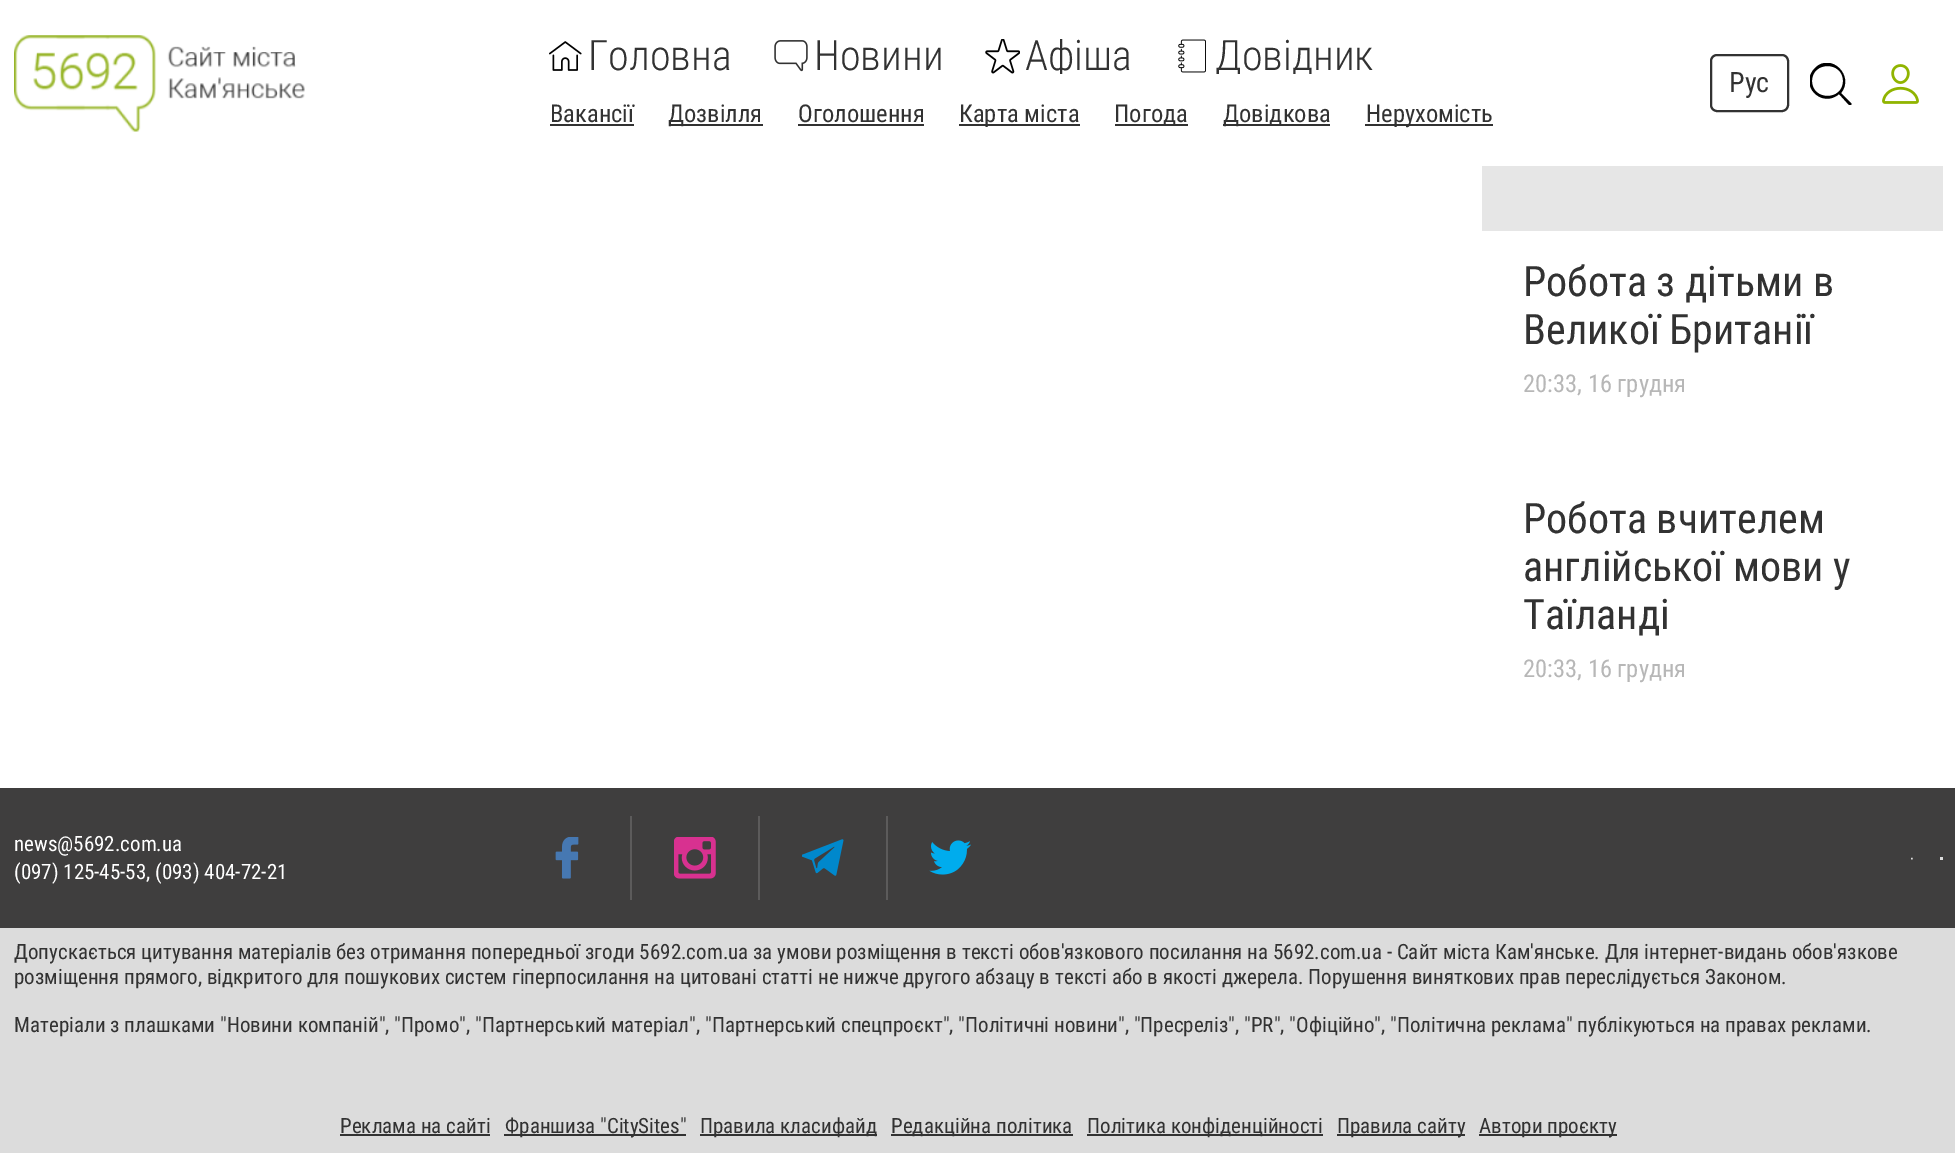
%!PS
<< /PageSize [1955 1153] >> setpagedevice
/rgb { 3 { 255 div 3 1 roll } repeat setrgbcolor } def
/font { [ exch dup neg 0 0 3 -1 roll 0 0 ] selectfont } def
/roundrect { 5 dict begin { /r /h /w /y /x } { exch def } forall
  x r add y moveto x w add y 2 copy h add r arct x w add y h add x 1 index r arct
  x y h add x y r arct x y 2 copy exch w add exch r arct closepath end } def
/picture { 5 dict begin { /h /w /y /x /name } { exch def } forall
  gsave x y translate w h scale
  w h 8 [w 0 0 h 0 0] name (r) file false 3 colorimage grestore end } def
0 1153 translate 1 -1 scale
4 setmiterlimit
255 255 255 rgb
0 0 1955 1153 rectfill
(img/1.rgb) 14 35 291 97 picture
(img/2.rgb) 549 41 33 30 picture
(img/3.rgb) 774 40 34 32 picture
(img/4.rgb) 985 39 35 35 picture
(img/5.rgb) 1178 39 28 34 picture
[
  [550 124 84 2 50 50 50]
  [669 124 94 2 50 50 50]
  [798 124 126 2 50 50 50]
  [959 124 121 2 50 50 50]
  [1115 124 73 2 50 50 50]
  [1223 124 107 2 50 50 50]
  [1365 124 128 2 50 50 50]
] { aload pop rgb rectfill } forall
2 setlinewidth
1711 55 77 56 6 roundrect stroke
gsave
1810 63 42 42 rectclip
0 0 0 rgb
1851 103 moveto 1841 93 lineto 1855 76 1831 52 1815 68 curveto 1798 85 1822 109 1839 94 curveto 1849 105 lineto 1851 106 1852 104 1851 103 curveto closepath 1812 81 moveto 1812 61 1843 61 1843 81 curveto 1843 101 1812 101 1812 81 curveto closepath fill
grestore
(img/6.rgb) 1882 64 37 40 picture
[
  [1482 166 461 65 230 230 230]
  [0 788 1955 140 63 62 62]
  [630 816 2 84 92 91 91]
] { aload pop rgb rectfill } forall
(img/7.rgb) 555 837 24 42 picture
758 816 2 84 rectfill
(img/8.rgb) 674 837 42 42 picture
886 816 2 84 rectfill
(img/9.rgb) 802 839 42 37 picture
(img/10.rgb) 929 840 42 35 picture
(img/11.rgb) 1911 857 2 3 picture
[
  [1940 857 3 3 220 220 220]
  [0 928 1955 225 220 220 220]
  [340 1134 150 2 50 50 50]
  [504 1134 182 2 50 50 50]
  [700 1134 177 2 50 50 50]
  [891 1134 182 2 50 50 50]
  [1087 1134 236 2 50 50 50]
  [1337 1134 128 2 50 50 50]
  [1479 1134 138 2 50 50 50]
] { aload pop rgb rectfill } forall
/RobotoCondensed-Light 42 font
588 70 moveto (Головна) show
814 70 moveto (Новини) show
gsave
985 39 147 35 rectclip
1025 70 moveto (Афіша) show
grestore
gsave
1174 39 200 35 rectclip
1215 70 moveto (Довідник) show
grestore
/RobotoCondensed-Regular 24.5 font
[
  [(Вакансії) 550 122]
  [(Дозвілля) 668 122]
  [(Оголошення) 798 122]
  [(Карта міста) 959 122]
  [(Погода) 1114 122]
  [(Довідкова) 1223 122]
  [(Нерухомість) 1366 122]
] { aload pop moveto show } forall
/RobotoCondensed-Regular 28 font
1729 92 moveto (Рус) show
/RobotoCondensed-Regular 42 font
1523 296 moveto (Робота з дітьми в) show
1523 344 moveto (Великої Британії) show
/RobotoCondensed-Regular 24.5 font
183 183 183 rgb
1523 392 moveto (20:33, 16 грудня) show
/RobotoCondensed-Regular 42 font
50 50 50 rgb
[
  [(Робота вчителем) 1523 533]
  [(англійської мови у) 1523 581]
  [(Таїланді) 1523 629]
] { aload pop moveto show } forall
/RobotoCondensed-Regular 24.5 font
183 183 183 rgb
1523 677 moveto (20:33, 16 грудня) show
/RobotoCondensed-Regular 21 font
255 255 255 rgb
14 851 moveto (news@5692.com.ua) show
14 879 moveto (\(097\) 125-45-53, \(093\) 404-72-21) show
50 50 50 rgb
[
  [(Допускається цитування матеріалів без отримання попередньої згоди 5692.com.ua за умови розміщення в тексті обов'язкового посилання на 5692.com.ua - Сайт міста Кам'янське. Для інтернет-видань обов'язкове) 14 959]
  [(розміщення прямого, відкритого для пошукових систем гіперпосилання на цитовані статті не нижче другого абзацу в тексті або в якості джерела. Порушення виняткових прав переслідується Законом.) 14 984]
  [(Матеріали з плашками "Новини компаній", "Промо", "Партнерський матеріал", "Партнерський спецпроєкт", "Політичні новини", "Пресреліз", "PR", "Офіційно", "Політична реклама" публікуються на правах реклами.) 14 1032]
  [(Реклама на сайті) 340 1133]
  [(Франшиза "CitySites") 505 1133]
  [(Правила класифайд) 700 1133]
  [(Редакційна політика) 891 1133]
  [(Політика конфіденційності) 1087 1133]
  [(Правила сайту) 1337 1133]
  [(Автори проєкту) 1479 1133]
] { aload pop moveto show } forall
showpage
